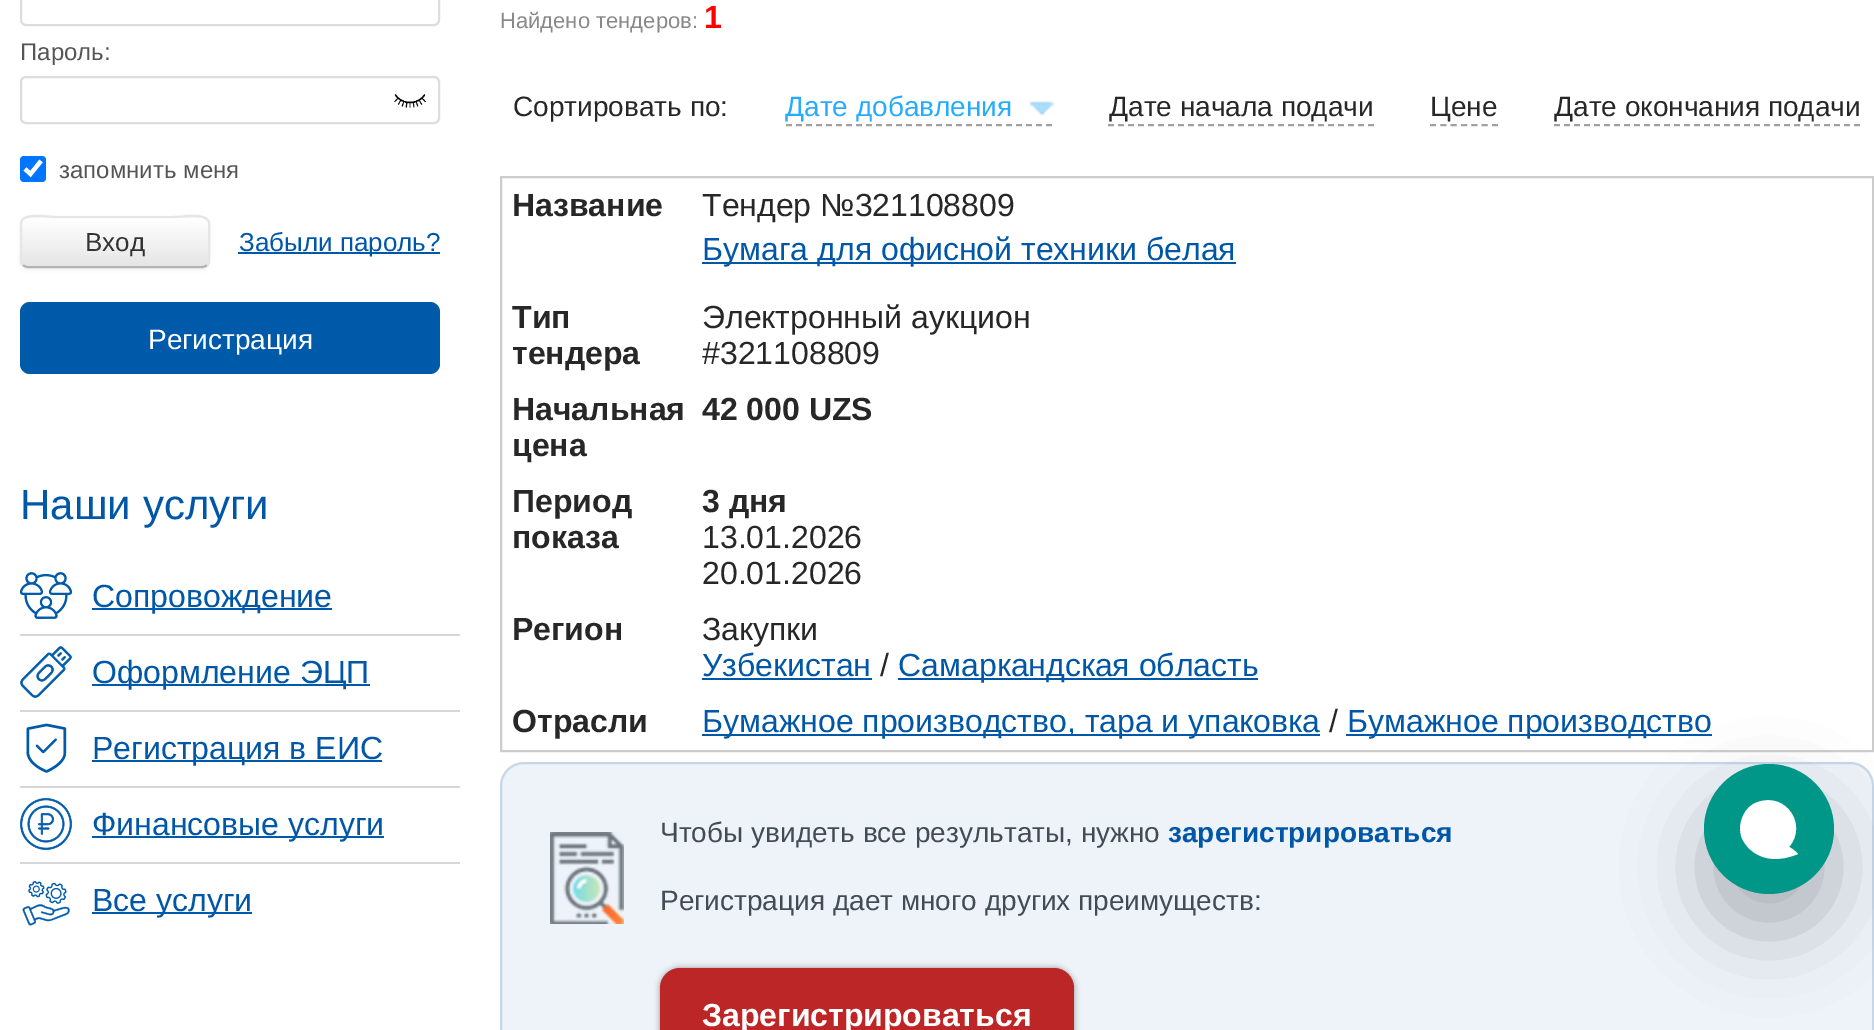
%!PS
<< /PageSize [1874 1030] /PageUsesTransparency true >> setpagedevice
/rgb { 3 { 255 div 3 1 roll } repeat setrgbcolor } def
/font { [ exch dup neg 0 0 3 -1 roll 0 0 ] selectfont } def
/alpha { dup .setfillconstantalpha .setstrokeconstantalpha } def
/circle { newpath 0 360 arc closepath } def
/roundrect { 5 dict begin { /r /h /w /y /x } { exch def } forall
  x r add y moveto x w add y 2 copy h add r arct x w add y h add x 1 index r arct
  x y h add x y r arct x y 2 copy exch w add exch r arct closepath end } def
/shadow { 12 dict begin { /a /b /q /h /w /y /x } { exch def } forall gsave /was 0 def
  9 -2 -9 { dup b mul 4 div /e exch def 1 sub .425 mul 2.718 exch exp 1 add a .99 .min exch div /now exch def
    1 1 now sub 1 was sub div sub alpha /was now def
    w h .min e 2 mul add 0 gt { x e sub y e sub w e 2 mul add h e 2 mul add
      q e add b .6 mul add w h .min 2 div e add .min 0 .max roundrect fill } if } for grestore end } def
/picture { 5 dict begin { /h /w /y /x /name } { exch def } forall
  gsave x y translate w h scale
  w h 8 [w 0 0 h 0 0] name (r) file false 3 colorimage grestore end } def
0 .pushpdf14devicefilter
0 1030 translate 1 -1 scale
4 setmiterlimit
255 255 255 rgb
0 0 1874 1030 rectfill
221 221 221 rgb
2 setlinewidth
21 -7 418 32 5 roundrect stroke
21 77 418 46 5 roundrect stroke
(img/1.rgb) 394 94 32 14 picture
0 117 255 rgb
20 156 26 26 4 roundrect fill
255 255 255 rgb
4.2 setlinewidth
25 169 moveto 30.5 174 lineto 41 161 lineto stroke
0 0 0 rgb
20 218 190 52 8 2 0.05 shadow
245 245 245 rgb
20 216 190 52 8 roundrect fill
gsave
20 216 190 52 8 roundrect clip newpath
gsave 20 218 moveto 210 218 lineto 210 266 lineto 20 266 lineto closepath clip newpath
<< /ShadingType 2 /ColorSpace /DeviceRGB /Coords [115 218 115 266] /Extend [true true] /Function << /FunctionType 2 /Domain [0 1] /C0 [1 1 1] /C1 [0.902 0.902 0.902] /N 1 >> >> shfill grestore
grestore
179 179 179 rgb
2 setlinewidth
207 265 moveto 205.5 266.5 204 267 202 267 curveto 28 267 lineto 26 267 24.5 266.5 23 265 curveto stroke
230 230 230 rgb
23 265 moveto 20 262 21 257.5 21 254 curveto 21 222.5 lineto 23.5 212 47.5 217 57 217 curveto 173 217 lineto 182.5 217 206.5 212 209 222.5 curveto 209 254 lineto 209 257.5 210 262 207 265 curveto stroke
0 87 168 rgb
238 252 202 2 rectfill
0 90 170 rgb
20 302 420 72 10 roundrect fill
(img/2.rgb) 20 572 52 47 picture
92 608 240 2 rectfill
214 214 214 rgb
20 634 440 2 rectfill
(img/3.rgb) 20 646 52 52 picture
0 90 170 rgb
92 684 278 2 rectfill
214 214 214 rgb
20 710 440 2 rectfill
(img/4.rgb) 26 723 41 50 picture
0 90 170 rgb
92 760 290 2 rectfill
214 214 214 rgb
20 786 440 2 rectfill
(img/5.rgb) 20 798 52 52 picture
0 90 170 rgb
92 836 292 2 rectfill
214 214 214 rgb
20 862 440 2 rectfill
(img/6.rgb) 22 881 48 45 picture
0 90 170 rgb
92 912 160 2 rectfill
161 161 161 rgb
[6 4] 0 setdash
786 125 moveto 1052 125 lineto stroke
(img/7.rgb) 1029 101 26 15 picture
1108 125 moveto 1374 125 lineto stroke
[6 4.34] 0 setdash
1430 125 moveto 1498 125 lineto stroke
[6 4] 0 setdash
1554 125 moveto 1860 125 lineto stroke
204 204 204 rgb
[] 0 setdash
501 177 1372 574 rectstroke
[
  [702 262 534 2 0 87 168]
  [702 678 170 2 0 87 168]
  [898 678 360 2 0 87 168]
  [702 734 618 2 0 87 168]
  [1346 734 366 2 0 87 168]
] { aload pop rgb rectfill } forall
237 243 249 rgb
501 763 1372 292 23 roundrect gsave fill grestore
199 215 231 rgb
stroke
(img/8.rgb) 550 832 74 92 picture
0 0 0 rgb
660 968 414 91 20 3 0.4 shadow
189 38 38 rgb
660 968 414 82 20 roundrect fill
34 36 43 rgb
1704 802 130 130 65 38 0.3 shadow
0 150 136 rgb
1769 829 65 circle fill
255 255 255 rgb
1744 842 moveto 1744 842 1759 870 1798 854 curveto 1798 854 1795 850 1789 847 curveto 1808 825 1786 792 1758 802 curveto 1751 804 1746 809 1743 816 curveto 1739 824 1739 835 1744 842 curveto closepath eofill
/LiberationSans-Regular 24 font
85 85 85 rgb
20 60 moveto (Пароль:) show
59 178 moveto (запомнить меня) show
/LiberationSans-Regular 26 font
51 51 51 rgb
85 251 moveto (Вход) show
0 87 168 rgb
239 251 moveto (Забыли пароль?) show
/LiberationSans-Regular 28 font
255 255 255 rgb
148 349 moveto (Регистрация) show
/LiberationSans-Regular 42 font
0 87 168 rgb
20 519 moveto (Наши услуги) show
/LiberationSans-Regular 32 font
[
  [(Сопровождение) 92 607]
  [(Оформление ЭЦП) 92 683]
  [(Регистрация в ЕИС) 92 759]
  [(Финансовые услуги) 92 835]
  [(Все услуги) 92 911]
] { aload pop moveto show } forall
/LiberationSans-Regular 22 font
137 137 137 rgb
500 28 moveto (Найдено тендеров:) show
/LiberationSans-Bold 32 font
255 0 0 rgb
704 28 moveto (1) show
/LiberationSans-Regular 28 font
39 39 39 rgb
513 116 moveto (Сортировать по:) show
37 172 254 rgb
785 116 moveto (Дате добавления) show
39 39 39 rgb
[
  [(Дате начала подачи) 1109 116]
  [(Цене) 1430 116]
  [(Дате окончания подачи) 1554 116]
] { aload pop moveto show } forall
/LiberationSans-Bold 32 font
512 216 moveto (Название) show
/LiberationSans-Regular 32 font
702 216 moveto (Тендер №321108809) show
0 87 168 rgb
702 260 moveto (Бумага для офисной техники белая) show
/LiberationSans-Bold 32 font
39 39 39 rgb
512 328 moveto (Тип) show
512 364 moveto (тендера) show
/LiberationSans-Regular 32 font
702 328 moveto (Электронный аукцион) show
702 364 moveto (#321108809) show
/LiberationSans-Bold 32 font
[
  [(Начальная) 512 420]
  [(цена) 512 456]
  [(42 000 UZS) 702 420]
  [(Период) 512 512]
  [(показа) 512 548]
  [(3 дня) 702 512]
] { aload pop moveto show } forall
/LiberationSans-Regular 32 font
702 548 moveto (13.01.2026) show
702 584 moveto (20.01.2026) show
/LiberationSans-Bold 32 font
512 640 moveto (Регион) show
/LiberationSans-Regular 32 font
702 640 moveto (Закупки) show
0 87 168 rgb
702 676 moveto (Узбекистан) show
39 39 39 rgb
880 676 moveto (/) show
0 87 168 rgb
898 676 moveto (Самаркандская область) show
/LiberationSans-Bold 32 font
39 39 39 rgb
512 732 moveto (Отрасли) show
/LiberationSans-Regular 32 font
0 87 168 rgb
702 732 moveto (Бумажное производство, тара и упаковка) show
39 39 39 rgb
1329 732 moveto (/) show
0 87 168 rgb
1347 732 moveto (Бумажное производство) show
/LiberationSans-Regular 28 font
68 76 83 rgb
660 842 moveto (Чтобы увидеть все результаты, нужно) show
/LiberationSans-Bold 28 font
0 87 168 rgb
1168 842 moveto (зарегистрироваться) show
/LiberationSans-Regular 28 font
68 76 83 rgb
660 910 moveto (Регистрация дает много других преимуществ:) show
/LiberationSans-Bold 32 font
255 255 255 rgb
702 1026 moveto (Зарегистрироваться) show
.poppdf14devicefilter showpage
